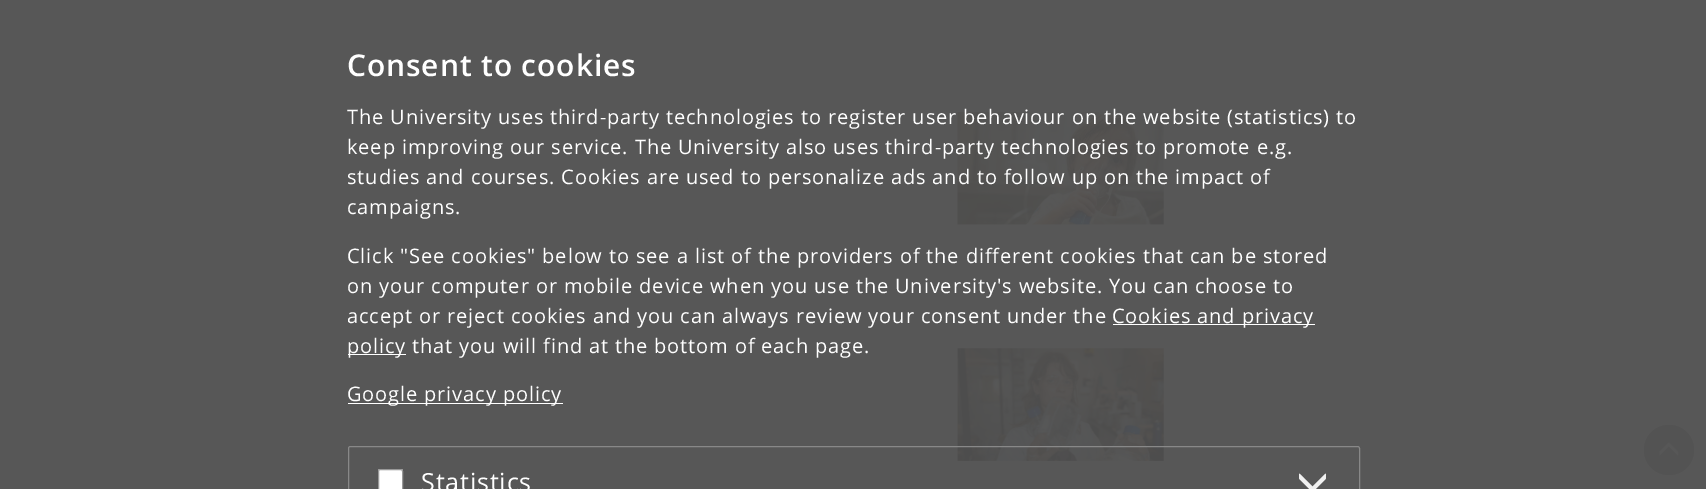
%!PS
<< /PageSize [1706 489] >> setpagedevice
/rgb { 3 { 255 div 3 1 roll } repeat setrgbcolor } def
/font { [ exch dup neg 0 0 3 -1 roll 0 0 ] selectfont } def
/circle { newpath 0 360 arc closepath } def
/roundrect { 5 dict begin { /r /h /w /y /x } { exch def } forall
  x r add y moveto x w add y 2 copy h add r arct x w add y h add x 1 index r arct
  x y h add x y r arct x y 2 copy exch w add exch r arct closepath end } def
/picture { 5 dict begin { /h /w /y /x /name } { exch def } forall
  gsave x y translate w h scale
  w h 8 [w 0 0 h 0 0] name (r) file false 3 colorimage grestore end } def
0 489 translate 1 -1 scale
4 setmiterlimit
87 87 87 rgb
0 0 1706 489 rectfill
[
  [1113 324 202 1 255 255 255]
  [348 354 58 1 255 255 255]
  [348 403 215 1 255 255 255]
] { aload pop rgb rectfill } forall
(img/3.rgb) 957 348 207 113 picture
136 136 136 rgb
348.5 446.5 1011 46 2 roundrect stroke
255 255 255 rgb
380.5 469 moveto 400.5 469 lineto 402 469 403 470 403 471.5 curveto 403 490 lineto 378 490 lineto 378 471.5 lineto 378 470 379 469 380.5 469 curveto closepath fill
153 153 153 rgb
378.5 469.5 24 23 2 roundrect stroke
(img/1.rgb) 1299 473 27 16 picture
(img/2.rgb) 957 112 207 113 picture
83 83 83 rgb
1669 450 25 circle fill
(img/4.rgb) 1659 442 20 14 picture
/OpenSans-SemiBold 30 font
255 255 255 rgb
347 76 moveto 0.88 0 (Consent to cookies) ashow
/OpenSans-Regular 20 font
347 124 moveto 0.88 0 (The University uses third-party technologies to register user behaviour on the website \(statistics\) to) ashow
347 154 moveto 0.88 0 (keep improving our service. The University also uses third-party technologies to promote e.g.) ashow
347 184 moveto 0.88 0 (studies and courses. Cookies are used to personalize ads and to follow up on the impact of) ashow
347 214 moveto 0.88 0 (campaigns.) ashow
347 263 moveto 0.88 0 (Click "See cookies" below to see a list of the providers of the different cookies that can be stored) ashow
347 293 moveto 0.88 0 (on your computer or mobile device when you use the University's website. You can choose to) ashow
347 323 moveto 0.88 0 (accept or reject cookies and you can always review your consent under the) ashow
1112 323 moveto 0.88 0 (Cookies and privacy) ashow
347 353 moveto 0.88 0 (policy that you will find at the bottom of each page.) ashow
347 401 moveto 0.88 0 (Google privacy policy) ashow
/OpenSans-Regular 25 font
421 491 moveto 0.88 0 (Statistics) ashow
showpage
